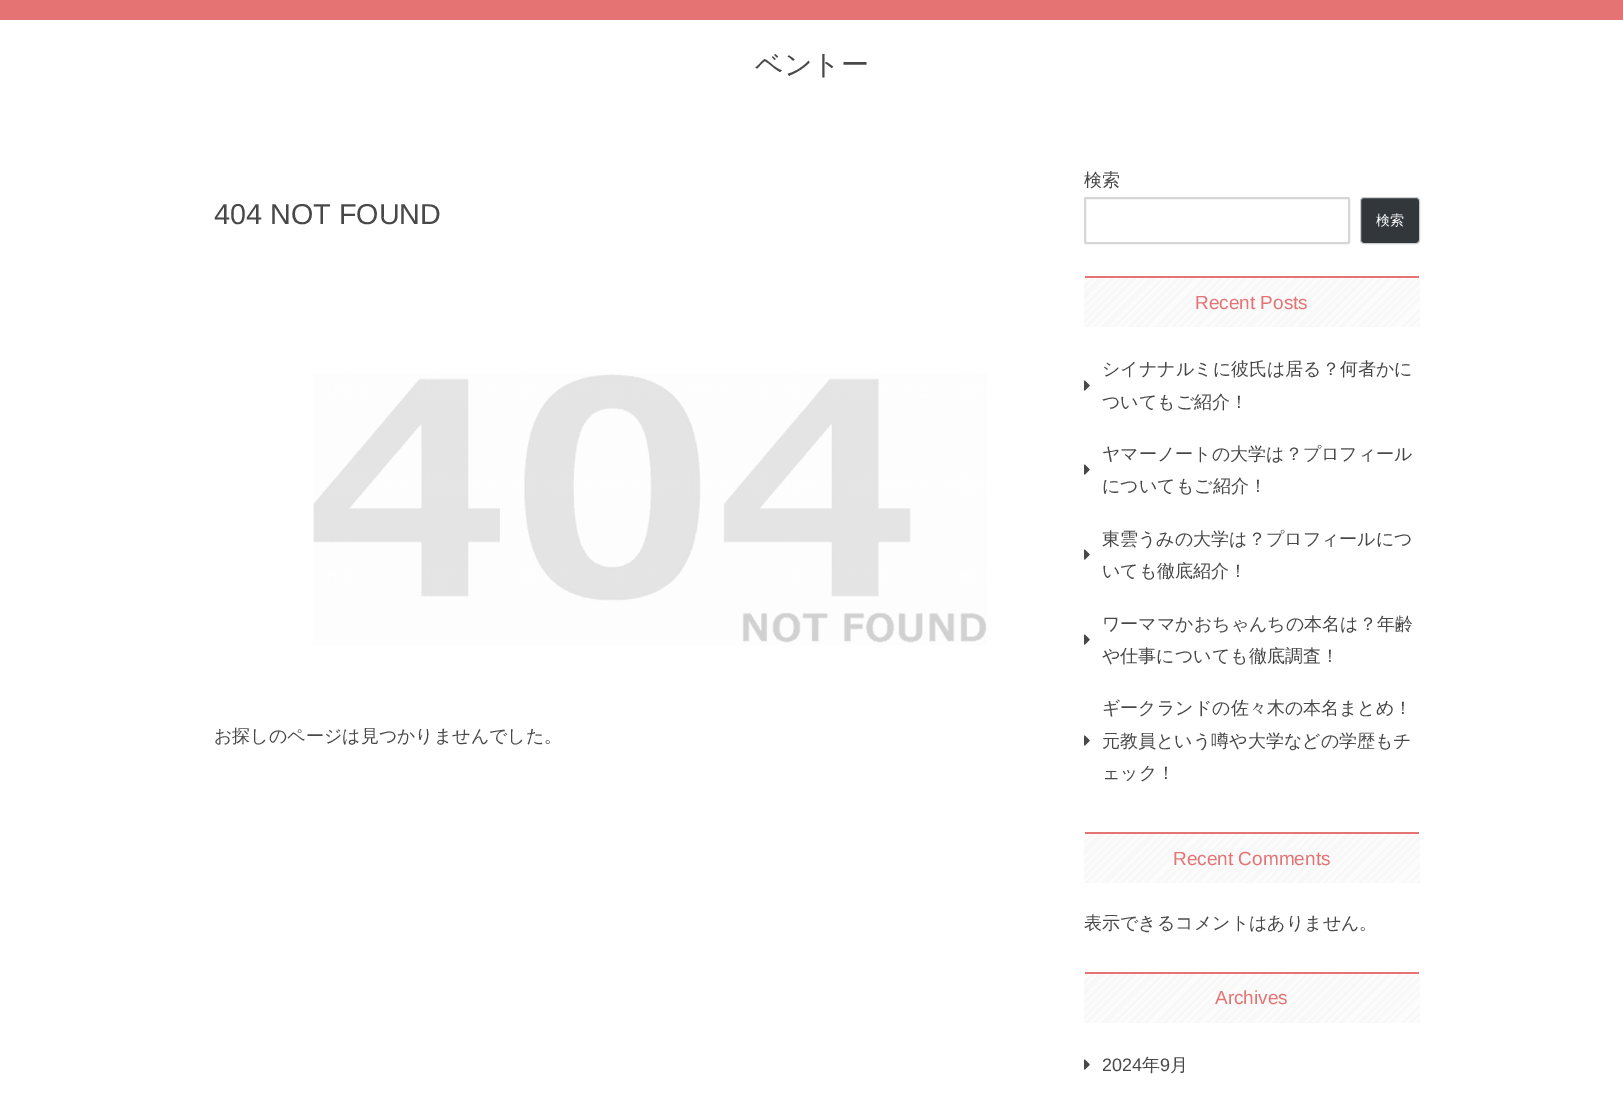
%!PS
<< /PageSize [1623 1105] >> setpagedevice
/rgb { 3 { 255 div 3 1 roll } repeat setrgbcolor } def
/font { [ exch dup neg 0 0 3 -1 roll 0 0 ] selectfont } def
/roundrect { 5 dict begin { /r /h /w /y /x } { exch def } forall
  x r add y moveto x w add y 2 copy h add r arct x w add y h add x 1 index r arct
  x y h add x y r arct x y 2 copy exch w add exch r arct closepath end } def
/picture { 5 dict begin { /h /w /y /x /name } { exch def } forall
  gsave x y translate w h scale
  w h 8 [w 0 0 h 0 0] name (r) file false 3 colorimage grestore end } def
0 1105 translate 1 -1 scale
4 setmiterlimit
255 255 255 rgb
0 0 1623 1105 rectfill
229 115 115 rgb
0 0 1623 20 rectfill
(img/1.rgb) 313 373 674 272 picture
214 214 214 rgb
2 setlinewidth
1085 198 264 45 1 roundrect stroke
50 55 60 rgb
1360.5 197.5 59 46 3.5 roundrect gsave fill grestore
204 204 204 rgb
1 setlinewidth
stroke
gsave 1086 278 moveto 1420 278 lineto 1420 325 lineto 1420 326 1419 327 1418 327 curveto 1086 327 lineto 1085 327 1084 326 1084 325 curveto 1084 278 lineto closepath clip newpath
<< /ShadingType 2 /ColorSpace /DeviceRGB /Coords [1348 399 1153 204] /Extend [true true] /Function << /FunctionType 3 /Domain [0 1] /Functions [<< /FunctionType 2 /Domain [0 1] /C0 [0.973 0.973 0.973] /C1 [0.973 0.973 0.973] /N 1 >> << /FunctionType 2 /Domain [0 1] /C0 [0.988 0.988 0.988] /C1 [0.988 0.988 0.988] /N 1 >> << /FunctionType 2 /Domain [0 1] /C0 [0.973 0.973 0.973] /C1 [0.973 0.973 0.973] /N 1 >> << /FunctionType 2 /Domain [0 1] /C0 [0.988 0.988 0.988] /C1 [0.988 0.988 0.988] /N 1 >> << /FunctionType 2 /Domain [0 1] /C0 [0.973 0.973 0.973] /C1 [0.973 0.973 0.973] /N 1 >> << /FunctionType 2 /Domain [0 1] /C0 [0.988 0.988 0.988] /C1 [0.988 0.988 0.988] /N 1 >> << /FunctionType 2 /Domain [0 1] /C0 [0.973 0.973 0.973] /C1 [0.973 0.973 0.973] /N 1 >> << /FunctionType 2 /Domain [0 1] /C0 [0.988 0.988 0.988] /C1 [0.988 0.988 0.988] /N 1 >> << /FunctionType 2 /Domain [0 1] /C0 [0.973 0.973 0.973] /C1 [0.973 0.973 0.973] /N 1 >> << /FunctionType 2 /Domain [0 1] /C0 [0.988 0.988 0.988] /C1 [0.988 0.988 0.988] /N 1 >> << /FunctionType 2 /Domain [0 1] /C0 [0.973 0.973 0.973] /C1 [0.973 0.973 0.973] /N 1 >> << /FunctionType 2 /Domain [0 1] /C0 [0.988 0.988 0.988] /C1 [0.988 0.988 0.988] /N 1 >> << /FunctionType 2 /Domain [0 1] /C0 [0.973 0.973 0.973] /C1 [0.973 0.973 0.973] /N 1 >> << /FunctionType 2 /Domain [0 1] /C0 [0.988 0.988 0.988] /C1 [0.988 0.988 0.988] /N 1 >> << /FunctionType 2 /Domain [0 1] /C0 [0.973 0.973 0.973] /C1 [0.973 0.973 0.973] /N 1 >> << /FunctionType 2 /Domain [0 1] /C0 [0.988 0.988 0.988] /C1 [0.988 0.988 0.988] /N 1 >> << /FunctionType 2 /Domain [0 1] /C0 [0.973 0.973 0.973] /C1 [0.973 0.973 0.973] /N 1 >> << /FunctionType 2 /Domain [0 1] /C0 [0.988 0.988 0.988] /C1 [0.988 0.988 0.988] /N 1 >> << /FunctionType 2 /Domain [0 1] /C0 [0.973 0.973 0.973] /C1 [0.973 0.973 0.973] /N 1 >> << /FunctionType 2 /Domain [0 1] /C0 [0.988 0.988 0.988] /C1 [0.988 0.988 0.988] /N 1 >> << /FunctionType 2 /Domain [0 1] /C0 [0.973 0.973 0.973] /C1 [0.973 0.973 0.973] /N 1 >> << /FunctionType 2 /Domain [0 1] /C0 [0.988 0.988 0.988] /C1 [0.988 0.988 0.988] /N 1 >> << /FunctionType 2 /Domain [0 1] /C0 [0.973 0.973 0.973] /C1 [0.973 0.973 0.973] /N 1 >> << /FunctionType 2 /Domain [0 1] /C0 [0.988 0.988 0.988] /C1 [0.988 0.988 0.988] /N 1 >> << /FunctionType 2 /Domain [0 1] /C0 [0.973 0.973 0.973] /C1 [0.973 0.973 0.973] /N 1 >> << /FunctionType 2 /Domain [0 1] /C0 [0.988 0.988 0.988] /C1 [0.988 0.988 0.988] /N 1 >> << /FunctionType 2 /Domain [0 1] /C0 [0.973 0.973 0.973] /C1 [0.973 0.973 0.973] /N 1 >> << /FunctionType 2 /Domain [0 1] /C0 [0.988 0.988 0.988] /C1 [0.988 0.988 0.988] /N 1 >> << /FunctionType 2 /Domain [0 1] /C0 [0.973 0.973 0.973] /C1 [0.973 0.973 0.973] /N 1 >> << /FunctionType 2 /Domain [0 1] /C0 [0.988 0.988 0.988] /C1 [0.988 0.988 0.988] /N 1 >> << /FunctionType 2 /Domain [0 1] /C0 [0.973 0.973 0.973] /C1 [0.973 0.973 0.973] /N 1 >> << /FunctionType 2 /Domain [0 1] /C0 [0.988 0.988 0.988] /C1 [0.988 0.988 0.988] /N 1 >> << /FunctionType 2 /Domain [0 1] /C0 [0.973 0.973 0.973] /C1 [0.973 0.973 0.973] /N 1 >> << /FunctionType 2 /Domain [0 1] /C0 [0.988 0.988 0.988] /C1 [0.988 0.988 0.988] /N 1 >> << /FunctionType 2 /Domain [0 1] /C0 [0.973 0.973 0.973] /C1 [0.973 0.973 0.973] /N 1 >> << /FunctionType 2 /Domain [0 1] /C0 [0.988 0.988 0.988] /C1 [0.988 0.988 0.988] /N 1 >> << /FunctionType 2 /Domain [0 1] /C0 [0.973 0.973 0.973] /C1 [0.973 0.973 0.973] /N 1 >> << /FunctionType 2 /Domain [0 1] /C0 [0.988 0.988 0.988] /C1 [0.988 0.988 0.988] /N 1 >> << /FunctionType 2 /Domain [0 1] /C0 [0.973 0.973 0.973] /C1 [0.973 0.973 0.973] /N 1 >> << /FunctionType 2 /Domain [0 1] /C0 [0.988 0.988 0.988] /C1 [0.988 0.988 0.988] /N 1 >> << /FunctionType 2 /Domain [0 1] /C0 [0.973 0.973 0.973] /C1 [0.973 0.973 0.973] /N 1 >> << /FunctionType 2 /Domain [0 1] /C0 [0.988 0.988 0.988] /C1 [0.988 0.988 0.988] /N 1 >> << /FunctionType 2 /Domain [0 1] /C0 [0.973 0.973 0.973] /C1 [0.973 0.973 0.973] /N 1 >> << /FunctionType 2 /Domain [0 1] /C0 [0.988 0.988 0.988] /C1 [0.988 0.988 0.988] /N 1 >> << /FunctionType 2 /Domain [0 1] /C0 [0.973 0.973 0.973] /C1 [0.973 0.973 0.973] /N 1 >> << /FunctionType 2 /Domain [0 1] /C0 [0.988 0.988 0.988] /C1 [0.988 0.988 0.988] /N 1 >> << /FunctionType 2 /Domain [0 1] /C0 [0.973 0.973 0.973] /C1 [0.973 0.973 0.973] /N 1 >> << /FunctionType 2 /Domain [0 1] /C0 [0.988 0.988 0.988] /C1 [0.988 0.988 0.988] /N 1 >> << /FunctionType 2 /Domain [0 1] /C0 [0.973 0.973 0.973] /C1 [0.973 0.973 0.973] /N 1 >> << /FunctionType 2 /Domain [0 1] /C0 [0.988 0.988 0.988] /C1 [0.988 0.988 0.988] /N 1 >> << /FunctionType 2 /Domain [0 1] /C0 [0.973 0.973 0.973] /C1 [0.973 0.973 0.973] /N 1 >> << /FunctionType 2 /Domain [0 1] /C0 [0.988 0.988 0.988] /C1 [0.988 0.988 0.988] /N 1 >> << /FunctionType 2 /Domain [0 1] /C0 [0.973 0.973 0.973] /C1 [0.973 0.973 0.973] /N 1 >> << /FunctionType 2 /Domain [0 1] /C0 [0.988 0.988 0.988] /C1 [0.988 0.988 0.988] /N 1 >> << /FunctionType 2 /Domain [0 1] /C0 [0.973 0.973 0.973] /C1 [0.973 0.973 0.973] /N 1 >> << /FunctionType 2 /Domain [0 1] /C0 [0.988 0.988 0.988] /C1 [0.988 0.988 0.988] /N 1 >> << /FunctionType 2 /Domain [0 1] /C0 [0.973 0.973 0.973] /C1 [0.973 0.973 0.973] /N 1 >> << /FunctionType 2 /Domain [0 1] /C0 [0.988 0.988 0.988] /C1 [0.988 0.988 0.988] /N 1 >> << /FunctionType 2 /Domain [0 1] /C0 [0.973 0.973 0.973] /C1 [0.973 0.973 0.973] /N 1 >> << /FunctionType 2 /Domain [0 1] /C0 [0.988 0.988 0.988] /C1 [0.988 0.988 0.988] /N 1 >> << /FunctionType 2 /Domain [0 1] /C0 [0.973 0.973 0.973] /C1 [0.973 0.973 0.973] /N 1 >> << /FunctionType 2 /Domain [0 1] /C0 [0.988 0.988 0.988] /C1 [0.988 0.988 0.988] /N 1 >> << /FunctionType 2 /Domain [0 1] /C0 [0.973 0.973 0.973] /C1 [0.973 0.973 0.973] /N 1 >> << /FunctionType 2 /Domain [0 1] /C0 [0.988 0.988 0.988] /C1 [0.988 0.988 0.988] /N 1 >> << /FunctionType 2 /Domain [0 1] /C0 [0.973 0.973 0.973] /C1 [0.973 0.973 0.973] /N 1 >> << /FunctionType 2 /Domain [0 1] /C0 [0.988 0.988 0.988] /C1 [0.988 0.988 0.988] /N 1 >> << /FunctionType 2 /Domain [0 1] /C0 [0.973 0.973 0.973] /C1 [0.973 0.973 0.973] /N 1 >> << /FunctionType 2 /Domain [0 1] /C0 [0.988 0.988 0.988] /C1 [0.988 0.988 0.988] /N 1 >> << /FunctionType 2 /Domain [0 1] /C0 [0.973 0.973 0.973] /C1 [0.973 0.973 0.973] /N 1 >> << /FunctionType 2 /Domain [0 1] /C0 [0.988 0.988 0.988] /C1 [0.988 0.988 0.988] /N 1 >> << /FunctionType 2 /Domain [0 1] /C0 [0.973 0.973 0.973] /C1 [0.973 0.973 0.973] /N 1 >> << /FunctionType 2 /Domain [0 1] /C0 [0.988 0.988 0.988] /C1 [0.988 0.988 0.988] /N 1 >> << /FunctionType 2 /Domain [0 1] /C0 [0.973 0.973 0.973] /C1 [0.973 0.973 0.973] /N 1 >> << /FunctionType 2 /Domain [0 1] /C0 [0.988 0.988 0.988] /C1 [0.988 0.988 0.988] /N 1 >> << /FunctionType 2 /Domain [0 1] /C0 [0.973 0.973 0.973] /C1 [0.973 0.973 0.973] /N 1 >> << /FunctionType 2 /Domain [0 1] /C0 [0.988 0.988 0.988] /C1 [0.988 0.988 0.988] /N 1 >> << /FunctionType 2 /Domain [0 1] /C0 [0.973 0.973 0.973] /C1 [0.973 0.973 0.973] /N 1 >> << /FunctionType 2 /Domain [0 1] /C0 [0.988 0.988 0.988] /C1 [0.988 0.988 0.988] /N 1 >> << /FunctionType 2 /Domain [0 1] /C0 [0.973 0.973 0.973] /C1 [0.973 0.973 0.973] /N 1 >> << /FunctionType 2 /Domain [0 1] /C0 [0.988 0.988 0.988] /C1 [0.988 0.988 0.988] /N 1 >> << /FunctionType 2 /Domain [0 1] /C0 [0.973 0.973 0.973] /C1 [0.973 0.973 0.973] /N 1 >> << /FunctionType 2 /Domain [0 1] /C0 [0.988 0.988 0.988] /C1 [0.988 0.988 0.988] /N 1 >> << /FunctionType 2 /Domain [0 1] /C0 [0.973 0.973 0.973] /C1 [0.973 0.973 0.973] /N 1 >> << /FunctionType 2 /Domain [0 1] /C0 [0.988 0.988 0.988] /C1 [0.988 0.988 0.988] /N 1 >> << /FunctionType 2 /Domain [0 1] /C0 [0.973 0.973 0.973] /C1 [0.973 0.973 0.973] /N 1 >> << /FunctionType 2 /Domain [0 1] /C0 [0.988 0.988 0.988] /C1 [0.988 0.988 0.988] /N 1 >> << /FunctionType 2 /Domain [0 1] /C0 [0.973 0.973 0.973] /C1 [0.973 0.973 0.973] /N 1 >> << /FunctionType 2 /Domain [0 1] /C0 [0.988 0.988 0.988] /C1 [0.988 0.988 0.988] /N 1 >> << /FunctionType 2 /Domain [0 1] /C0 [0.973 0.973 0.973] /C1 [0.973 0.973 0.973] /N 1 >> << /FunctionType 2 /Domain [0 1] /C0 [0.988 0.988 0.988] /C1 [0.988 0.988 0.988] /N 1 >> << /FunctionType 2 /Domain [0 1] /C0 [0.973 0.973 0.973] /C1 [0.973 0.973 0.973] /N 1 >> << /FunctionType 2 /Domain [0 1] /C0 [0.988 0.988 0.988] /C1 [0.988 0.988 0.988] /N 1 >>] /Bounds [0.01 0.02 0.03 0.04 0.05 0.07 0.08 0.09 0.1 0.11 0.12 0.13 0.14 0.15 0.16 0.17 0.18 0.2 0.21 0.22 0.23 0.24 0.25 0.26 0.27 0.28 0.29 0.3 0.32 0.33 0.34 0.35 0.36 0.37 0.38 0.39 0.4 0.41 0.42 0.43 0.45 0.46 0.47 0.48 0.49 0.5 0.51 0.52 0.53 0.54 0.55 0.57 0.58 0.59 0.6 0.61 0.62 0.63 0.64 0.65 0.66 0.67 0.68 0.7 0.71 0.72 0.73 0.74 0.75 0.76 0.77 0.78 0.79 0.8 0.82 0.83 0.84 0.85 0.86 0.87 0.88 0.89 0.9 0.91 0.92 0.93 0.95 0.96 0.97 0.98 0.99] /Encode [0 1 0 1 0 1 0 1 0 1 0 1 0 1 0 1 0 1 0 1 0 1 0 1 0 1 0 1 0 1 0 1 0 1 0 1 0 1 0 1 0 1 0 1 0 1 0 1 0 1 0 1 0 1 0 1 0 1 0 1 0 1 0 1 0 1 0 1 0 1 0 1 0 1 0 1 0 1 0 1 0 1 0 1 0 1 0 1 0 1 0 1 0 1 0 1 0 1 0 1 0 1 0 1 0 1 0 1 0 1 0 1 0 1 0 1 0 1 0 1 0 1 0 1 0 1 0 1 0 1 0 1 0 1 0 1 0 1 0 1 0 1 0 1 0 1 0 1 0 1 0 1 0 1 0 1 0 1 0 1 0 1 0 1 0 1 0 1 0 1 0 1 0 1 0 1 0 1 0 1 0 1 0 1] >> >> shfill grestore
229 115 115 rgb
1085 276 334 2 rectfill
(img/2.rgb) 1084 380 6 11 picture
(img/2.rgb) 1084 464 6 11 picture
(img/2.rgb) 1084 549 6 11 picture
(img/2.rgb) 1084 634 6 11 picture
(img/2.rgb) 1084 735 6 11 picture
gsave 1086 834 moveto 1420 834 lineto 1420 881 lineto 1420 882 1419 883 1418 883 curveto 1086 883 lineto 1085 883 1084 882 1084 881 curveto 1084 834 lineto closepath clip newpath
<< /ShadingType 2 /ColorSpace /DeviceRGB /Coords [1348 955 1153 760] /Extend [true true] /Function << /FunctionType 3 /Domain [0 1] /Functions [<< /FunctionType 2 /Domain [0 1] /C0 [0.973 0.973 0.973] /C1 [0.973 0.973 0.973] /N 1 >> << /FunctionType 2 /Domain [0 1] /C0 [0.988 0.988 0.988] /C1 [0.988 0.988 0.988] /N 1 >> << /FunctionType 2 /Domain [0 1] /C0 [0.973 0.973 0.973] /C1 [0.973 0.973 0.973] /N 1 >> << /FunctionType 2 /Domain [0 1] /C0 [0.988 0.988 0.988] /C1 [0.988 0.988 0.988] /N 1 >> << /FunctionType 2 /Domain [0 1] /C0 [0.973 0.973 0.973] /C1 [0.973 0.973 0.973] /N 1 >> << /FunctionType 2 /Domain [0 1] /C0 [0.988 0.988 0.988] /C1 [0.988 0.988 0.988] /N 1 >> << /FunctionType 2 /Domain [0 1] /C0 [0.973 0.973 0.973] /C1 [0.973 0.973 0.973] /N 1 >> << /FunctionType 2 /Domain [0 1] /C0 [0.988 0.988 0.988] /C1 [0.988 0.988 0.988] /N 1 >> << /FunctionType 2 /Domain [0 1] /C0 [0.973 0.973 0.973] /C1 [0.973 0.973 0.973] /N 1 >> << /FunctionType 2 /Domain [0 1] /C0 [0.988 0.988 0.988] /C1 [0.988 0.988 0.988] /N 1 >> << /FunctionType 2 /Domain [0 1] /C0 [0.973 0.973 0.973] /C1 [0.973 0.973 0.973] /N 1 >> << /FunctionType 2 /Domain [0 1] /C0 [0.988 0.988 0.988] /C1 [0.988 0.988 0.988] /N 1 >> << /FunctionType 2 /Domain [0 1] /C0 [0.973 0.973 0.973] /C1 [0.973 0.973 0.973] /N 1 >> << /FunctionType 2 /Domain [0 1] /C0 [0.988 0.988 0.988] /C1 [0.988 0.988 0.988] /N 1 >> << /FunctionType 2 /Domain [0 1] /C0 [0.973 0.973 0.973] /C1 [0.973 0.973 0.973] /N 1 >> << /FunctionType 2 /Domain [0 1] /C0 [0.988 0.988 0.988] /C1 [0.988 0.988 0.988] /N 1 >> << /FunctionType 2 /Domain [0 1] /C0 [0.973 0.973 0.973] /C1 [0.973 0.973 0.973] /N 1 >> << /FunctionType 2 /Domain [0 1] /C0 [0.988 0.988 0.988] /C1 [0.988 0.988 0.988] /N 1 >> << /FunctionType 2 /Domain [0 1] /C0 [0.973 0.973 0.973] /C1 [0.973 0.973 0.973] /N 1 >> << /FunctionType 2 /Domain [0 1] /C0 [0.988 0.988 0.988] /C1 [0.988 0.988 0.988] /N 1 >> << /FunctionType 2 /Domain [0 1] /C0 [0.973 0.973 0.973] /C1 [0.973 0.973 0.973] /N 1 >> << /FunctionType 2 /Domain [0 1] /C0 [0.988 0.988 0.988] /C1 [0.988 0.988 0.988] /N 1 >> << /FunctionType 2 /Domain [0 1] /C0 [0.973 0.973 0.973] /C1 [0.973 0.973 0.973] /N 1 >> << /FunctionType 2 /Domain [0 1] /C0 [0.988 0.988 0.988] /C1 [0.988 0.988 0.988] /N 1 >> << /FunctionType 2 /Domain [0 1] /C0 [0.973 0.973 0.973] /C1 [0.973 0.973 0.973] /N 1 >> << /FunctionType 2 /Domain [0 1] /C0 [0.988 0.988 0.988] /C1 [0.988 0.988 0.988] /N 1 >> << /FunctionType 2 /Domain [0 1] /C0 [0.973 0.973 0.973] /C1 [0.973 0.973 0.973] /N 1 >> << /FunctionType 2 /Domain [0 1] /C0 [0.988 0.988 0.988] /C1 [0.988 0.988 0.988] /N 1 >> << /FunctionType 2 /Domain [0 1] /C0 [0.973 0.973 0.973] /C1 [0.973 0.973 0.973] /N 1 >> << /FunctionType 2 /Domain [0 1] /C0 [0.988 0.988 0.988] /C1 [0.988 0.988 0.988] /N 1 >> << /FunctionType 2 /Domain [0 1] /C0 [0.973 0.973 0.973] /C1 [0.973 0.973 0.973] /N 1 >> << /FunctionType 2 /Domain [0 1] /C0 [0.988 0.988 0.988] /C1 [0.988 0.988 0.988] /N 1 >> << /FunctionType 2 /Domain [0 1] /C0 [0.973 0.973 0.973] /C1 [0.973 0.973 0.973] /N 1 >> << /FunctionType 2 /Domain [0 1] /C0 [0.988 0.988 0.988] /C1 [0.988 0.988 0.988] /N 1 >> << /FunctionType 2 /Domain [0 1] /C0 [0.973 0.973 0.973] /C1 [0.973 0.973 0.973] /N 1 >> << /FunctionType 2 /Domain [0 1] /C0 [0.988 0.988 0.988] /C1 [0.988 0.988 0.988] /N 1 >> << /FunctionType 2 /Domain [0 1] /C0 [0.973 0.973 0.973] /C1 [0.973 0.973 0.973] /N 1 >> << /FunctionType 2 /Domain [0 1] /C0 [0.988 0.988 0.988] /C1 [0.988 0.988 0.988] /N 1 >> << /FunctionType 2 /Domain [0 1] /C0 [0.973 0.973 0.973] /C1 [0.973 0.973 0.973] /N 1 >> << /FunctionType 2 /Domain [0 1] /C0 [0.988 0.988 0.988] /C1 [0.988 0.988 0.988] /N 1 >> << /FunctionType 2 /Domain [0 1] /C0 [0.973 0.973 0.973] /C1 [0.973 0.973 0.973] /N 1 >> << /FunctionType 2 /Domain [0 1] /C0 [0.988 0.988 0.988] /C1 [0.988 0.988 0.988] /N 1 >> << /FunctionType 2 /Domain [0 1] /C0 [0.973 0.973 0.973] /C1 [0.973 0.973 0.973] /N 1 >> << /FunctionType 2 /Domain [0 1] /C0 [0.988 0.988 0.988] /C1 [0.988 0.988 0.988] /N 1 >> << /FunctionType 2 /Domain [0 1] /C0 [0.973 0.973 0.973] /C1 [0.973 0.973 0.973] /N 1 >> << /FunctionType 2 /Domain [0 1] /C0 [0.988 0.988 0.988] /C1 [0.988 0.988 0.988] /N 1 >> << /FunctionType 2 /Domain [0 1] /C0 [0.973 0.973 0.973] /C1 [0.973 0.973 0.973] /N 1 >> << /FunctionType 2 /Domain [0 1] /C0 [0.988 0.988 0.988] /C1 [0.988 0.988 0.988] /N 1 >> << /FunctionType 2 /Domain [0 1] /C0 [0.973 0.973 0.973] /C1 [0.973 0.973 0.973] /N 1 >> << /FunctionType 2 /Domain [0 1] /C0 [0.988 0.988 0.988] /C1 [0.988 0.988 0.988] /N 1 >> << /FunctionType 2 /Domain [0 1] /C0 [0.973 0.973 0.973] /C1 [0.973 0.973 0.973] /N 1 >> << /FunctionType 2 /Domain [0 1] /C0 [0.988 0.988 0.988] /C1 [0.988 0.988 0.988] /N 1 >> << /FunctionType 2 /Domain [0 1] /C0 [0.973 0.973 0.973] /C1 [0.973 0.973 0.973] /N 1 >> << /FunctionType 2 /Domain [0 1] /C0 [0.988 0.988 0.988] /C1 [0.988 0.988 0.988] /N 1 >> << /FunctionType 2 /Domain [0 1] /C0 [0.973 0.973 0.973] /C1 [0.973 0.973 0.973] /N 1 >> << /FunctionType 2 /Domain [0 1] /C0 [0.988 0.988 0.988] /C1 [0.988 0.988 0.988] /N 1 >> << /FunctionType 2 /Domain [0 1] /C0 [0.973 0.973 0.973] /C1 [0.973 0.973 0.973] /N 1 >> << /FunctionType 2 /Domain [0 1] /C0 [0.988 0.988 0.988] /C1 [0.988 0.988 0.988] /N 1 >> << /FunctionType 2 /Domain [0 1] /C0 [0.973 0.973 0.973] /C1 [0.973 0.973 0.973] /N 1 >> << /FunctionType 2 /Domain [0 1] /C0 [0.988 0.988 0.988] /C1 [0.988 0.988 0.988] /N 1 >> << /FunctionType 2 /Domain [0 1] /C0 [0.973 0.973 0.973] /C1 [0.973 0.973 0.973] /N 1 >> << /FunctionType 2 /Domain [0 1] /C0 [0.988 0.988 0.988] /C1 [0.988 0.988 0.988] /N 1 >> << /FunctionType 2 /Domain [0 1] /C0 [0.973 0.973 0.973] /C1 [0.973 0.973 0.973] /N 1 >> << /FunctionType 2 /Domain [0 1] /C0 [0.988 0.988 0.988] /C1 [0.988 0.988 0.988] /N 1 >> << /FunctionType 2 /Domain [0 1] /C0 [0.973 0.973 0.973] /C1 [0.973 0.973 0.973] /N 1 >> << /FunctionType 2 /Domain [0 1] /C0 [0.988 0.988 0.988] /C1 [0.988 0.988 0.988] /N 1 >> << /FunctionType 2 /Domain [0 1] /C0 [0.973 0.973 0.973] /C1 [0.973 0.973 0.973] /N 1 >> << /FunctionType 2 /Domain [0 1] /C0 [0.988 0.988 0.988] /C1 [0.988 0.988 0.988] /N 1 >> << /FunctionType 2 /Domain [0 1] /C0 [0.973 0.973 0.973] /C1 [0.973 0.973 0.973] /N 1 >> << /FunctionType 2 /Domain [0 1] /C0 [0.988 0.988 0.988] /C1 [0.988 0.988 0.988] /N 1 >> << /FunctionType 2 /Domain [0 1] /C0 [0.973 0.973 0.973] /C1 [0.973 0.973 0.973] /N 1 >> << /FunctionType 2 /Domain [0 1] /C0 [0.988 0.988 0.988] /C1 [0.988 0.988 0.988] /N 1 >> << /FunctionType 2 /Domain [0 1] /C0 [0.973 0.973 0.973] /C1 [0.973 0.973 0.973] /N 1 >> << /FunctionType 2 /Domain [0 1] /C0 [0.988 0.988 0.988] /C1 [0.988 0.988 0.988] /N 1 >> << /FunctionType 2 /Domain [0 1] /C0 [0.973 0.973 0.973] /C1 [0.973 0.973 0.973] /N 1 >> << /FunctionType 2 /Domain [0 1] /C0 [0.988 0.988 0.988] /C1 [0.988 0.988 0.988] /N 1 >> << /FunctionType 2 /Domain [0 1] /C0 [0.973 0.973 0.973] /C1 [0.973 0.973 0.973] /N 1 >> << /FunctionType 2 /Domain [0 1] /C0 [0.988 0.988 0.988] /C1 [0.988 0.988 0.988] /N 1 >> << /FunctionType 2 /Domain [0 1] /C0 [0.973 0.973 0.973] /C1 [0.973 0.973 0.973] /N 1 >> << /FunctionType 2 /Domain [0 1] /C0 [0.988 0.988 0.988] /C1 [0.988 0.988 0.988] /N 1 >> << /FunctionType 2 /Domain [0 1] /C0 [0.973 0.973 0.973] /C1 [0.973 0.973 0.973] /N 1 >> << /FunctionType 2 /Domain [0 1] /C0 [0.988 0.988 0.988] /C1 [0.988 0.988 0.988] /N 1 >> << /FunctionType 2 /Domain [0 1] /C0 [0.973 0.973 0.973] /C1 [0.973 0.973 0.973] /N 1 >> << /FunctionType 2 /Domain [0 1] /C0 [0.988 0.988 0.988] /C1 [0.988 0.988 0.988] /N 1 >> << /FunctionType 2 /Domain [0 1] /C0 [0.973 0.973 0.973] /C1 [0.973 0.973 0.973] /N 1 >> << /FunctionType 2 /Domain [0 1] /C0 [0.988 0.988 0.988] /C1 [0.988 0.988 0.988] /N 1 >> << /FunctionType 2 /Domain [0 1] /C0 [0.973 0.973 0.973] /C1 [0.973 0.973 0.973] /N 1 >> << /FunctionType 2 /Domain [0 1] /C0 [0.988 0.988 0.988] /C1 [0.988 0.988 0.988] /N 1 >> << /FunctionType 2 /Domain [0 1] /C0 [0.973 0.973 0.973] /C1 [0.973 0.973 0.973] /N 1 >> << /FunctionType 2 /Domain [0 1] /C0 [0.988 0.988 0.988] /C1 [0.988 0.988 0.988] /N 1 >> << /FunctionType 2 /Domain [0 1] /C0 [0.973 0.973 0.973] /C1 [0.973 0.973 0.973] /N 1 >> << /FunctionType 2 /Domain [0 1] /C0 [0.988 0.988 0.988] /C1 [0.988 0.988 0.988] /N 1 >>] /Bounds [0.01 0.02 0.03 0.04 0.05 0.07 0.08 0.09 0.1 0.11 0.12 0.13 0.14 0.15 0.16 0.17 0.18 0.2 0.21 0.22 0.23 0.24 0.25 0.26 0.27 0.28 0.29 0.3 0.32 0.33 0.34 0.35 0.36 0.37 0.38 0.39 0.4 0.41 0.42 0.43 0.45 0.46 0.47 0.48 0.49 0.5 0.51 0.52 0.53 0.54 0.55 0.57 0.58 0.59 0.6 0.61 0.62 0.63 0.64 0.65 0.66 0.67 0.68 0.7 0.71 0.72 0.73 0.74 0.75 0.76 0.77 0.78 0.79 0.8 0.82 0.83 0.84 0.85 0.86 0.87 0.88 0.89 0.9 0.91 0.92 0.93 0.95 0.96 0.97 0.98 0.99] /Encode [0 1 0 1 0 1 0 1 0 1 0 1 0 1 0 1 0 1 0 1 0 1 0 1 0 1 0 1 0 1 0 1 0 1 0 1 0 1 0 1 0 1 0 1 0 1 0 1 0 1 0 1 0 1 0 1 0 1 0 1 0 1 0 1 0 1 0 1 0 1 0 1 0 1 0 1 0 1 0 1 0 1 0 1 0 1 0 1 0 1 0 1 0 1 0 1 0 1 0 1 0 1 0 1 0 1 0 1 0 1 0 1 0 1 0 1 0 1 0 1 0 1 0 1 0 1 0 1 0 1 0 1 0 1 0 1 0 1 0 1 0 1 0 1 0 1 0 1 0 1 0 1 0 1 0 1 0 1 0 1 0 1 0 1 0 1 0 1 0 1 0 1 0 1 0 1 0 1 0 1 0 1 0 1] >> >> shfill grestore
1085 832 334 2 rectfill
gsave 1086 974 moveto 1420 974 lineto 1420 1021 lineto 1420 1022 1419 1023 1418 1023 curveto 1086 1023 lineto 1085 1023 1084 1022 1084 1021 curveto 1084 974 lineto closepath clip newpath
<< /ShadingType 2 /ColorSpace /DeviceRGB /Coords [1348 1095 1153 900] /Extend [true true] /Function << /FunctionType 3 /Domain [0 1] /Functions [<< /FunctionType 2 /Domain [0 1] /C0 [0.973 0.973 0.973] /C1 [0.973 0.973 0.973] /N 1 >> << /FunctionType 2 /Domain [0 1] /C0 [0.988 0.988 0.988] /C1 [0.988 0.988 0.988] /N 1 >> << /FunctionType 2 /Domain [0 1] /C0 [0.973 0.973 0.973] /C1 [0.973 0.973 0.973] /N 1 >> << /FunctionType 2 /Domain [0 1] /C0 [0.988 0.988 0.988] /C1 [0.988 0.988 0.988] /N 1 >> << /FunctionType 2 /Domain [0 1] /C0 [0.973 0.973 0.973] /C1 [0.973 0.973 0.973] /N 1 >> << /FunctionType 2 /Domain [0 1] /C0 [0.988 0.988 0.988] /C1 [0.988 0.988 0.988] /N 1 >> << /FunctionType 2 /Domain [0 1] /C0 [0.973 0.973 0.973] /C1 [0.973 0.973 0.973] /N 1 >> << /FunctionType 2 /Domain [0 1] /C0 [0.988 0.988 0.988] /C1 [0.988 0.988 0.988] /N 1 >> << /FunctionType 2 /Domain [0 1] /C0 [0.973 0.973 0.973] /C1 [0.973 0.973 0.973] /N 1 >> << /FunctionType 2 /Domain [0 1] /C0 [0.988 0.988 0.988] /C1 [0.988 0.988 0.988] /N 1 >> << /FunctionType 2 /Domain [0 1] /C0 [0.973 0.973 0.973] /C1 [0.973 0.973 0.973] /N 1 >> << /FunctionType 2 /Domain [0 1] /C0 [0.988 0.988 0.988] /C1 [0.988 0.988 0.988] /N 1 >> << /FunctionType 2 /Domain [0 1] /C0 [0.973 0.973 0.973] /C1 [0.973 0.973 0.973] /N 1 >> << /FunctionType 2 /Domain [0 1] /C0 [0.988 0.988 0.988] /C1 [0.988 0.988 0.988] /N 1 >> << /FunctionType 2 /Domain [0 1] /C0 [0.973 0.973 0.973] /C1 [0.973 0.973 0.973] /N 1 >> << /FunctionType 2 /Domain [0 1] /C0 [0.988 0.988 0.988] /C1 [0.988 0.988 0.988] /N 1 >> << /FunctionType 2 /Domain [0 1] /C0 [0.973 0.973 0.973] /C1 [0.973 0.973 0.973] /N 1 >> << /FunctionType 2 /Domain [0 1] /C0 [0.988 0.988 0.988] /C1 [0.988 0.988 0.988] /N 1 >> << /FunctionType 2 /Domain [0 1] /C0 [0.973 0.973 0.973] /C1 [0.973 0.973 0.973] /N 1 >> << /FunctionType 2 /Domain [0 1] /C0 [0.988 0.988 0.988] /C1 [0.988 0.988 0.988] /N 1 >> << /FunctionType 2 /Domain [0 1] /C0 [0.973 0.973 0.973] /C1 [0.973 0.973 0.973] /N 1 >> << /FunctionType 2 /Domain [0 1] /C0 [0.988 0.988 0.988] /C1 [0.988 0.988 0.988] /N 1 >> << /FunctionType 2 /Domain [0 1] /C0 [0.973 0.973 0.973] /C1 [0.973 0.973 0.973] /N 1 >> << /FunctionType 2 /Domain [0 1] /C0 [0.988 0.988 0.988] /C1 [0.988 0.988 0.988] /N 1 >> << /FunctionType 2 /Domain [0 1] /C0 [0.973 0.973 0.973] /C1 [0.973 0.973 0.973] /N 1 >> << /FunctionType 2 /Domain [0 1] /C0 [0.988 0.988 0.988] /C1 [0.988 0.988 0.988] /N 1 >> << /FunctionType 2 /Domain [0 1] /C0 [0.973 0.973 0.973] /C1 [0.973 0.973 0.973] /N 1 >> << /FunctionType 2 /Domain [0 1] /C0 [0.988 0.988 0.988] /C1 [0.988 0.988 0.988] /N 1 >> << /FunctionType 2 /Domain [0 1] /C0 [0.973 0.973 0.973] /C1 [0.973 0.973 0.973] /N 1 >> << /FunctionType 2 /Domain [0 1] /C0 [0.988 0.988 0.988] /C1 [0.988 0.988 0.988] /N 1 >> << /FunctionType 2 /Domain [0 1] /C0 [0.973 0.973 0.973] /C1 [0.973 0.973 0.973] /N 1 >> << /FunctionType 2 /Domain [0 1] /C0 [0.988 0.988 0.988] /C1 [0.988 0.988 0.988] /N 1 >> << /FunctionType 2 /Domain [0 1] /C0 [0.973 0.973 0.973] /C1 [0.973 0.973 0.973] /N 1 >> << /FunctionType 2 /Domain [0 1] /C0 [0.988 0.988 0.988] /C1 [0.988 0.988 0.988] /N 1 >> << /FunctionType 2 /Domain [0 1] /C0 [0.973 0.973 0.973] /C1 [0.973 0.973 0.973] /N 1 >> << /FunctionType 2 /Domain [0 1] /C0 [0.988 0.988 0.988] /C1 [0.988 0.988 0.988] /N 1 >> << /FunctionType 2 /Domain [0 1] /C0 [0.973 0.973 0.973] /C1 [0.973 0.973 0.973] /N 1 >> << /FunctionType 2 /Domain [0 1] /C0 [0.988 0.988 0.988] /C1 [0.988 0.988 0.988] /N 1 >> << /FunctionType 2 /Domain [0 1] /C0 [0.973 0.973 0.973] /C1 [0.973 0.973 0.973] /N 1 >> << /FunctionType 2 /Domain [0 1] /C0 [0.988 0.988 0.988] /C1 [0.988 0.988 0.988] /N 1 >> << /FunctionType 2 /Domain [0 1] /C0 [0.973 0.973 0.973] /C1 [0.973 0.973 0.973] /N 1 >> << /FunctionType 2 /Domain [0 1] /C0 [0.988 0.988 0.988] /C1 [0.988 0.988 0.988] /N 1 >> << /FunctionType 2 /Domain [0 1] /C0 [0.973 0.973 0.973] /C1 [0.973 0.973 0.973] /N 1 >> << /FunctionType 2 /Domain [0 1] /C0 [0.988 0.988 0.988] /C1 [0.988 0.988 0.988] /N 1 >> << /FunctionType 2 /Domain [0 1] /C0 [0.973 0.973 0.973] /C1 [0.973 0.973 0.973] /N 1 >> << /FunctionType 2 /Domain [0 1] /C0 [0.988 0.988 0.988] /C1 [0.988 0.988 0.988] /N 1 >> << /FunctionType 2 /Domain [0 1] /C0 [0.973 0.973 0.973] /C1 [0.973 0.973 0.973] /N 1 >> << /FunctionType 2 /Domain [0 1] /C0 [0.988 0.988 0.988] /C1 [0.988 0.988 0.988] /N 1 >> << /FunctionType 2 /Domain [0 1] /C0 [0.973 0.973 0.973] /C1 [0.973 0.973 0.973] /N 1 >> << /FunctionType 2 /Domain [0 1] /C0 [0.988 0.988 0.988] /C1 [0.988 0.988 0.988] /N 1 >> << /FunctionType 2 /Domain [0 1] /C0 [0.973 0.973 0.973] /C1 [0.973 0.973 0.973] /N 1 >> << /FunctionType 2 /Domain [0 1] /C0 [0.988 0.988 0.988] /C1 [0.988 0.988 0.988] /N 1 >> << /FunctionType 2 /Domain [0 1] /C0 [0.973 0.973 0.973] /C1 [0.973 0.973 0.973] /N 1 >> << /FunctionType 2 /Domain [0 1] /C0 [0.988 0.988 0.988] /C1 [0.988 0.988 0.988] /N 1 >> << /FunctionType 2 /Domain [0 1] /C0 [0.973 0.973 0.973] /C1 [0.973 0.973 0.973] /N 1 >> << /FunctionType 2 /Domain [0 1] /C0 [0.988 0.988 0.988] /C1 [0.988 0.988 0.988] /N 1 >> << /FunctionType 2 /Domain [0 1] /C0 [0.973 0.973 0.973] /C1 [0.973 0.973 0.973] /N 1 >> << /FunctionType 2 /Domain [0 1] /C0 [0.988 0.988 0.988] /C1 [0.988 0.988 0.988] /N 1 >> << /FunctionType 2 /Domain [0 1] /C0 [0.973 0.973 0.973] /C1 [0.973 0.973 0.973] /N 1 >> << /FunctionType 2 /Domain [0 1] /C0 [0.988 0.988 0.988] /C1 [0.988 0.988 0.988] /N 1 >> << /FunctionType 2 /Domain [0 1] /C0 [0.973 0.973 0.973] /C1 [0.973 0.973 0.973] /N 1 >> << /FunctionType 2 /Domain [0 1] /C0 [0.988 0.988 0.988] /C1 [0.988 0.988 0.988] /N 1 >> << /FunctionType 2 /Domain [0 1] /C0 [0.973 0.973 0.973] /C1 [0.973 0.973 0.973] /N 1 >> << /FunctionType 2 /Domain [0 1] /C0 [0.988 0.988 0.988] /C1 [0.988 0.988 0.988] /N 1 >> << /FunctionType 2 /Domain [0 1] /C0 [0.973 0.973 0.973] /C1 [0.973 0.973 0.973] /N 1 >> << /FunctionType 2 /Domain [0 1] /C0 [0.988 0.988 0.988] /C1 [0.988 0.988 0.988] /N 1 >> << /FunctionType 2 /Domain [0 1] /C0 [0.973 0.973 0.973] /C1 [0.973 0.973 0.973] /N 1 >> << /FunctionType 2 /Domain [0 1] /C0 [0.988 0.988 0.988] /C1 [0.988 0.988 0.988] /N 1 >> << /FunctionType 2 /Domain [0 1] /C0 [0.973 0.973 0.973] /C1 [0.973 0.973 0.973] /N 1 >> << /FunctionType 2 /Domain [0 1] /C0 [0.988 0.988 0.988] /C1 [0.988 0.988 0.988] /N 1 >> << /FunctionType 2 /Domain [0 1] /C0 [0.973 0.973 0.973] /C1 [0.973 0.973 0.973] /N 1 >> << /FunctionType 2 /Domain [0 1] /C0 [0.988 0.988 0.988] /C1 [0.988 0.988 0.988] /N 1 >> << /FunctionType 2 /Domain [0 1] /C0 [0.973 0.973 0.973] /C1 [0.973 0.973 0.973] /N 1 >> << /FunctionType 2 /Domain [0 1] /C0 [0.988 0.988 0.988] /C1 [0.988 0.988 0.988] /N 1 >> << /FunctionType 2 /Domain [0 1] /C0 [0.973 0.973 0.973] /C1 [0.973 0.973 0.973] /N 1 >> << /FunctionType 2 /Domain [0 1] /C0 [0.988 0.988 0.988] /C1 [0.988 0.988 0.988] /N 1 >> << /FunctionType 2 /Domain [0 1] /C0 [0.973 0.973 0.973] /C1 [0.973 0.973 0.973] /N 1 >> << /FunctionType 2 /Domain [0 1] /C0 [0.988 0.988 0.988] /C1 [0.988 0.988 0.988] /N 1 >> << /FunctionType 2 /Domain [0 1] /C0 [0.973 0.973 0.973] /C1 [0.973 0.973 0.973] /N 1 >> << /FunctionType 2 /Domain [0 1] /C0 [0.988 0.988 0.988] /C1 [0.988 0.988 0.988] /N 1 >> << /FunctionType 2 /Domain [0 1] /C0 [0.973 0.973 0.973] /C1 [0.973 0.973 0.973] /N 1 >> << /FunctionType 2 /Domain [0 1] /C0 [0.988 0.988 0.988] /C1 [0.988 0.988 0.988] /N 1 >> << /FunctionType 2 /Domain [0 1] /C0 [0.973 0.973 0.973] /C1 [0.973 0.973 0.973] /N 1 >> << /FunctionType 2 /Domain [0 1] /C0 [0.988 0.988 0.988] /C1 [0.988 0.988 0.988] /N 1 >> << /FunctionType 2 /Domain [0 1] /C0 [0.973 0.973 0.973] /C1 [0.973 0.973 0.973] /N 1 >> << /FunctionType 2 /Domain [0 1] /C0 [0.988 0.988 0.988] /C1 [0.988 0.988 0.988] /N 1 >> << /FunctionType 2 /Domain [0 1] /C0 [0.973 0.973 0.973] /C1 [0.973 0.973 0.973] /N 1 >> << /FunctionType 2 /Domain [0 1] /C0 [0.988 0.988 0.988] /C1 [0.988 0.988 0.988] /N 1 >> << /FunctionType 2 /Domain [0 1] /C0 [0.973 0.973 0.973] /C1 [0.973 0.973 0.973] /N 1 >> << /FunctionType 2 /Domain [0 1] /C0 [0.988 0.988 0.988] /C1 [0.988 0.988 0.988] /N 1 >> << /FunctionType 2 /Domain [0 1] /C0 [0.973 0.973 0.973] /C1 [0.973 0.973 0.973] /N 1 >> << /FunctionType 2 /Domain [0 1] /C0 [0.988 0.988 0.988] /C1 [0.988 0.988 0.988] /N 1 >>] /Bounds [0.01 0.02 0.03 0.04 0.05 0.07 0.08 0.09 0.1 0.11 0.12 0.13 0.14 0.15 0.16 0.17 0.18 0.2 0.21 0.22 0.23 0.24 0.25 0.26 0.27 0.28 0.29 0.3 0.32 0.33 0.34 0.35 0.36 0.37 0.38 0.39 0.4 0.41 0.42 0.43 0.45 0.46 0.47 0.48 0.49 0.5 0.51 0.52 0.53 0.54 0.55 0.57 0.58 0.59 0.6 0.61 0.62 0.63 0.64 0.65 0.66 0.67 0.68 0.7 0.71 0.72 0.73 0.74 0.75 0.76 0.77 0.78 0.79 0.8 0.82 0.83 0.84 0.85 0.86 0.87 0.88 0.89 0.9 0.91 0.92 0.93 0.95 0.96 0.97 0.98 0.99] /Encode [0 1 0 1 0 1 0 1 0 1 0 1 0 1 0 1 0 1 0 1 0 1 0 1 0 1 0 1 0 1 0 1 0 1 0 1 0 1 0 1 0 1 0 1 0 1 0 1 0 1 0 1 0 1 0 1 0 1 0 1 0 1 0 1 0 1 0 1 0 1 0 1 0 1 0 1 0 1 0 1 0 1 0 1 0 1 0 1 0 1 0 1 0 1 0 1 0 1 0 1 0 1 0 1 0 1 0 1 0 1 0 1 0 1 0 1 0 1 0 1 0 1 0 1 0 1 0 1 0 1 0 1 0 1 0 1 0 1 0 1 0 1 0 1 0 1 0 1 0 1 0 1 0 1 0 1 0 1 0 1 0 1 0 1 0 1 0 1 0 1 0 1 0 1 0 1 0 1 0 1 0 1 0 1] >> >> shfill grestore
1085 972 334 2 rectfill
(img/2.rgb) 1084 1059 6 11 picture
/WenQuanYiZenHei-Medium 28 font
72 72 72 rgb
755 74 moveto (ベントー) show
/LiberationSans-Regular 28.75 font
214 224 moveto (404 NOT FOUND) show
/WenQuanYiZenHei-Medium 18 font
214 742 moveto (お探しのページは見つかりませんでした。) show
1084 186 moveto (検索) show
/WenQuanYiZenHei-Medium 14 font
255 255 255 rgb
1376 225 moveto (検索) show
/LiberationSans-Regular 19 font
229 115 115 rgb
1195 309 moveto (Recent Posts) show
/WenQuanYiZenHei-Medium 18 font
72 72 72 rgb
[
  [(シイナナルミに彼氏は居る？何者かに) 1102 375]
  [(ついてもご紹介！) 1102 408]
  [(ヤマーノートの大学は？プロフィール) 1102 460]
  [(についてもご紹介！) 1102 492]
  [(東雲うみの大学は？プロフィールにつ) 1102 545]
  [(いても徹底紹介！) 1102 577]
  [(ワーママかおちゃんちの本名は？年齢) 1102 630]
  [(や仕事についても徹底調査！) 1102 662]
  [(ギークランドの佐々木の本名まとめ！) 1102 714]
  [(元教員という噂や大学などの学歴もチ) 1102 747]
  [(ェック！) 1102 779]
] { aload pop moveto show } forall
/LiberationSans-Regular 19 font
229 115 115 rgb
1173 865 moveto (Recent Comments) show
/WenQuanYiZenHei-Medium 18 font
72 72 72 rgb
1084 929 moveto (表示できるコメントはありません。) show
/LiberationSans-Regular 19 font
229 115 115 rgb
1215 1004 moveto (Archives) show
/LiberationSans-Regular 18 font
72 72 72 rgb
1102 1071 moveto (2024) show
/WenQuanYiZenHei-Medium 18 font
1142 1071 moveto (年) show
/LiberationSans-Regular 18 font
1160 1071 moveto (9) show
/WenQuanYiZenHei-Medium 18 font
1170 1071 moveto (月) show
showpage
